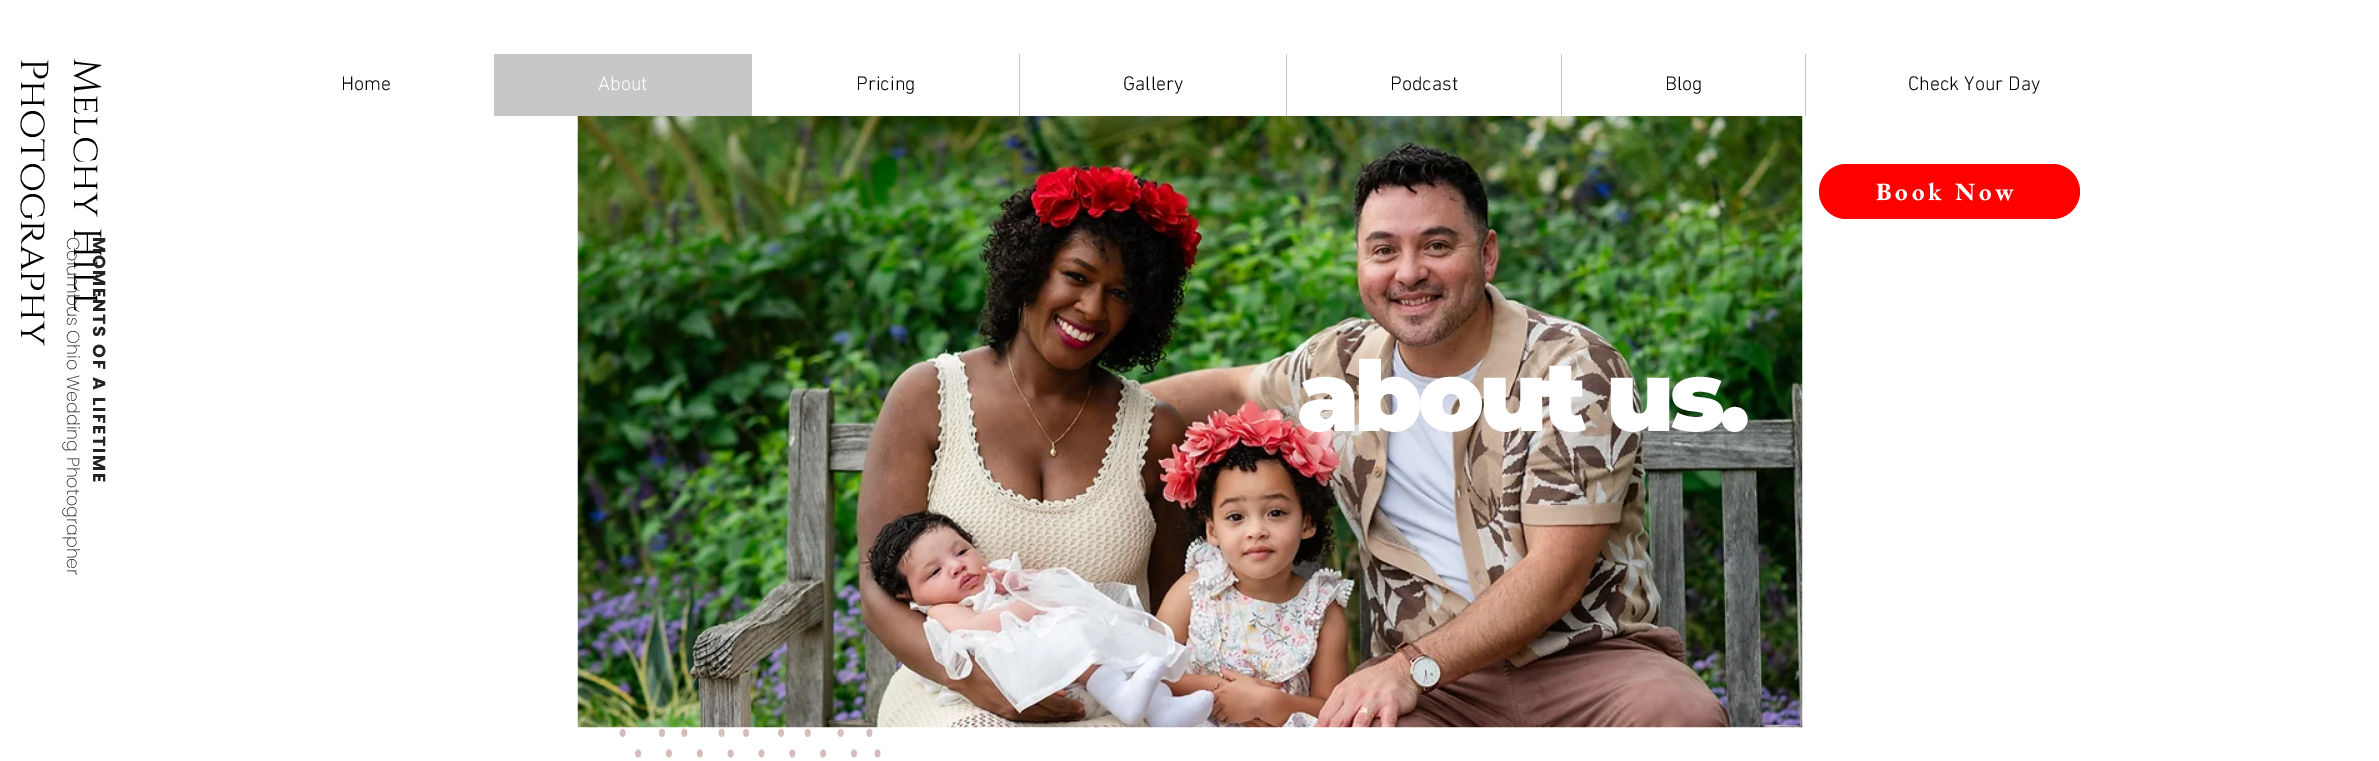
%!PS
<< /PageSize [2379 761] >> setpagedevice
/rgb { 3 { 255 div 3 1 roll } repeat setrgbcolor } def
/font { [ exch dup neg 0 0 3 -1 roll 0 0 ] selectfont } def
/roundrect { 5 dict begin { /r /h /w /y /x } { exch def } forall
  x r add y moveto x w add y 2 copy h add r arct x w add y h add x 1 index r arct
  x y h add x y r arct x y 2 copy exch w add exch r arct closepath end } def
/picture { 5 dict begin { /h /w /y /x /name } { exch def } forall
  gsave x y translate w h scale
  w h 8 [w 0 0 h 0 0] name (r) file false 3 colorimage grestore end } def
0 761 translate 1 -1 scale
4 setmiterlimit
255 255 255 rgb
0 0 2379 761 rectfill
[
  [494 54 258 62 199 199 199]
  [1019 54 1 62 199 199 199]
  [1286 54 1 62 199 199 199]
  [1561 54 1 62 199 199 199]
  [1805 54 1 62 199 199 199]
] { aload pop rgb rectfill } forall
255 0 0 rgb
1819 164 261 55 27.5 roundrect fill
(img/1.rgb) 577 116 1226 612 picture
(img/2.rgb) 619 728 262 30 picture
/Cinzel-Regular 38.75 font
0 0 0 rgb
gsave 21 58 translate 90 rotate 0 0 moveto (Photography) show grestore
gsave 74 58 translate 90 rotate 0 0 moveto (Melchy Hill) show grestore
/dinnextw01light-Light 20 font
341 90 moveto (Home) show
255 255 255 rgb
598 90 moveto (About) show
0 0 0 rgb
[
  [(Pricing) 856 90]
  [(Gallery) 1123 90]
  [(Podcast) 1390 90]
  [(Blog) 1665 90]
  [(Check Your Day) 1908 90]
] { aload pop moveto show } forall
/EBGaramond-Bold 25 font
255 255 255 rgb
1876 200 moveto 3.75 0 (Book Now) ashow
/Poppins-ExtraLight 17.5 font
36 35 35 rgb
gsave 67 237 translate 90 rotate 0 0 moveto (Columbus Ohio Wedding Photographer) show grestore
/Poppins-Bold 17.5 font
gsave 93 237 translate 90 rotate 0 0 moveto 1.75 0 (MOMENTS OF A LIFETIME) ashow grestore
/Montserrat-Thin 97.5 font
255 255 255 rgb
1297 431 moveto -4.9 0 (about us.) ashow
showpage
